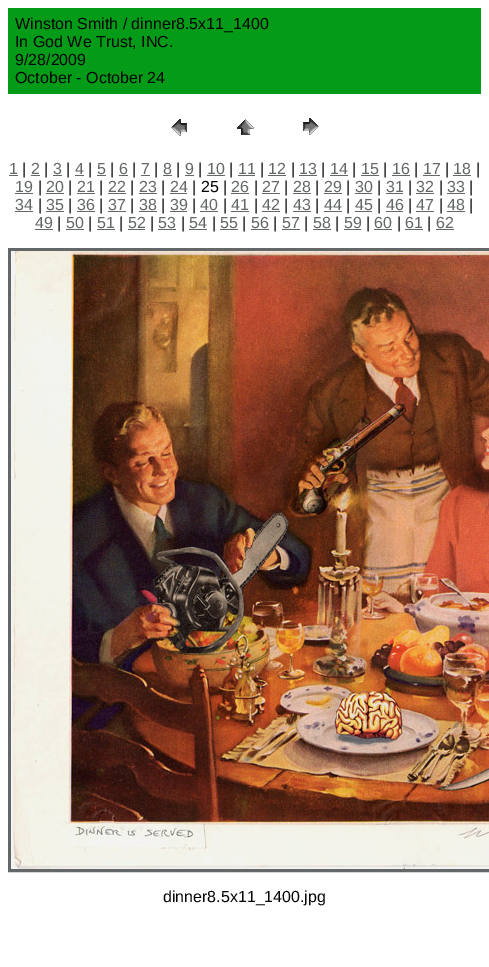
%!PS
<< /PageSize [489 967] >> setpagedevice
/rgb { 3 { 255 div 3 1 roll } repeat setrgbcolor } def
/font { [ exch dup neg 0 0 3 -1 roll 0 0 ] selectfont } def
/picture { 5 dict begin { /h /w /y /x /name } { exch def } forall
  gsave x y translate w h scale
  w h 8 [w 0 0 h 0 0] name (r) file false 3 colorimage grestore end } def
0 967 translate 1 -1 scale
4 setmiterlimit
255 255 255 rgb
0 0 489 967 rectfill
3 155 24 rgb
8 8 473 86 rectfill
(img/1.rgb) 171 119 16 17 picture
(img/2.rgb) 237 119 17 16 picture
(img/3.rgb) 303 118 16 17 picture
[
  [9 175 9 1 99 103 103]
  [31 175 9 1 99 103 103]
  [53 175 9 1 99 103 103]
  [75 175 9 1 99 103 103]
  [97 175 9 1 99 103 103]
  [119 175 9 1 99 103 103]
  [141 175 9 1 99 103 103]
  [163 175 9 1 99 103 103]
  [185 175 9 1 99 103 103]
  [207 175 18 1 99 103 103]
  [238 175 17 1 99 103 103]
  [268 175 18 1 99 103 103]
  [299 175 18 1 99 103 103]
  [330 175 18 1 99 103 103]
  [361 175 18 1 99 103 103]
  [392 175 18 1 99 103 103]
  [423 175 17 1 99 103 103]
  [453 175 18 1 99 103 103]
  [15 193 18 1 99 103 103]
  [46 193 18 1 99 103 103]
  [77 193 18 1 99 103 103]
  [108 193 18 1 99 103 103]
  [139 193 18 1 99 103 103]
  [170 193 17 1 99 103 103]
  [231 193 18 1 99 103 103]
  [262 193 18 1 99 103 103]
  [293 193 18 1 99 103 103]
  [324 193 18 1 99 103 103]
  [355 193 17 1 99 103 103]
  [386 193 17 1 99 103 103]
  [416 193 18 1 99 103 103]
  [447 193 18 1 99 103 103]
  [15 211 18 1 99 103 103]
  [46 211 18 1 99 103 103]
  [77 211 18 1 99 103 103]
  [108 211 18 1 99 103 103]
  [139 211 18 1 99 103 103]
  [170 211 17 1 99 103 103]
  [200 211 18 1 99 103 103]
  [231 211 18 1 99 103 103]
  [262 211 18 1 99 103 103]
  [293 211 18 1 99 103 103]
  [324 211 18 1 99 103 103]
  [355 211 17 1 99 103 103]
  [386 211 17 1 99 103 103]
  [416 211 18 1 99 103 103]
  [447 211 18 1 99 103 103]
  [35 229 18 1 99 103 103]
  [66 229 18 1 99 103 103]
  [97 229 18 1 99 103 103]
  [128 229 17 1 99 103 103]
  [158 229 18 1 99 103 103]
  [189 229 18 1 99 103 103]
  [220 229 18 1 99 103 103]
  [251 229 18 1 99 103 103]
  [282 229 18 1 99 103 103]
  [313 229 18 1 99 103 103]
  [344 229 17 1 99 103 103]
  [374 229 18 1 99 103 103]
  [405 229 18 1 99 103 103]
  [436 229 18 1 99 103 103]
] { aload pop rgb rectfill } forall
3 setlinewidth
9.5 249.5 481 621 rectstroke
(img/4.rgb) 11 251 478 618 picture
/LiberationSans-Regular 16 font
5 5 5 rgb
[
  [(Winston Smith / dinner8.5x11_1400) 15 29]
  [(In God We Trust, INC.) 15 47]
  [(9/28/2009) 15 65]
  [(October - October 24) 15 83]
] { aload pop moveto show } forall
99 103 103 rgb
9 174 moveto (1) show
5 5 5 rgb
22 174 moveto (|) show
99 103 103 rgb
31 174 moveto (2) show
5 5 5 rgb
44 174 moveto (|) show
99 103 103 rgb
53 174 moveto (3) show
5 5 5 rgb
66 174 moveto (|) show
99 103 103 rgb
75 174 moveto (4) show
5 5 5 rgb
88 174 moveto (|) show
99 103 103 rgb
97 174 moveto (5) show
5 5 5 rgb
110 174 moveto (|) show
99 103 103 rgb
119 174 moveto (6) show
5 5 5 rgb
132 174 moveto (|) show
99 103 103 rgb
141 174 moveto (7) show
5 5 5 rgb
154 174 moveto (|) show
99 103 103 rgb
163 174 moveto (8) show
5 5 5 rgb
176 174 moveto (|) show
99 103 103 rgb
185 174 moveto (9) show
5 5 5 rgb
198 174 moveto (|) show
99 103 103 rgb
207 174 moveto (10) show
5 5 5 rgb
229 174 moveto (|) show
99 103 103 rgb
238 174 moveto (11) show
5 5 5 rgb
260 174 moveto (|) show
99 103 103 rgb
268 174 moveto (12) show
5 5 5 rgb
291 174 moveto (|) show
99 103 103 rgb
299 174 moveto (13) show
5 5 5 rgb
321 174 moveto (|) show
99 103 103 rgb
330 174 moveto (14) show
5 5 5 rgb
352 174 moveto (|) show
99 103 103 rgb
361 174 moveto (15) show
5 5 5 rgb
383 174 moveto (|) show
99 103 103 rgb
392 174 moveto (16) show
5 5 5 rgb
414 174 moveto (|) show
99 103 103 rgb
423 174 moveto (17) show
5 5 5 rgb
445 174 moveto (|) show
99 103 103 rgb
453 174 moveto (18) show
5 5 5 rgb
476 174 moveto (|) show
99 103 103 rgb
15 192 moveto (19) show
5 5 5 rgb
38 192 moveto (|) show
99 103 103 rgb
46 192 moveto (20) show
5 5 5 rgb
68 192 moveto (|) show
99 103 103 rgb
77 192 moveto (21) show
5 5 5 rgb
99 192 moveto (|) show
99 103 103 rgb
108 192 moveto (22) show
5 5 5 rgb
130 192 moveto (|) show
99 103 103 rgb
139 192 moveto (23) show
5 5 5 rgb
161 192 moveto (|) show
99 103 103 rgb
170 192 moveto (24) show
5 5 5 rgb
192 192 moveto (| 25 |) show
99 103 103 rgb
231 192 moveto (26) show
5 5 5 rgb
254 192 moveto (|) show
99 103 103 rgb
262 192 moveto (27) show
5 5 5 rgb
284 192 moveto (|) show
99 103 103 rgb
293 192 moveto (28) show
5 5 5 rgb
315 192 moveto (|) show
99 103 103 rgb
324 192 moveto (29) show
5 5 5 rgb
346 192 moveto (|) show
99 103 103 rgb
355 192 moveto (30) show
5 5 5 rgb
377 192 moveto (|) show
99 103 103 rgb
386 192 moveto (31) show
5 5 5 rgb
408 192 moveto (|) show
99 103 103 rgb
416 192 moveto (32) show
5 5 5 rgb
439 192 moveto (|) show
99 103 103 rgb
447 192 moveto (33) show
5 5 5 rgb
469 192 moveto (|) show
99 103 103 rgb
15 210 moveto (34) show
5 5 5 rgb
38 210 moveto (|) show
99 103 103 rgb
46 210 moveto (35) show
5 5 5 rgb
68 210 moveto (|) show
99 103 103 rgb
77 210 moveto (36) show
5 5 5 rgb
99 210 moveto (|) show
99 103 103 rgb
108 210 moveto (37) show
5 5 5 rgb
130 210 moveto (|) show
99 103 103 rgb
139 210 moveto (38) show
5 5 5 rgb
161 210 moveto (|) show
99 103 103 rgb
170 210 moveto (39) show
5 5 5 rgb
192 210 moveto (|) show
99 103 103 rgb
200 210 moveto (40) show
5 5 5 rgb
223 210 moveto (|) show
99 103 103 rgb
231 210 moveto (41) show
5 5 5 rgb
254 210 moveto (|) show
99 103 103 rgb
262 210 moveto (42) show
5 5 5 rgb
284 210 moveto (|) show
99 103 103 rgb
293 210 moveto (43) show
5 5 5 rgb
315 210 moveto (|) show
99 103 103 rgb
324 210 moveto (44) show
5 5 5 rgb
346 210 moveto (|) show
99 103 103 rgb
355 210 moveto (45) show
5 5 5 rgb
377 210 moveto (|) show
99 103 103 rgb
386 210 moveto (46) show
5 5 5 rgb
408 210 moveto (|) show
99 103 103 rgb
416 210 moveto (47) show
5 5 5 rgb
439 210 moveto (|) show
99 103 103 rgb
447 210 moveto (48) show
5 5 5 rgb
469 210 moveto (|) show
99 103 103 rgb
35 228 moveto (49) show
5 5 5 rgb
57 228 moveto (|) show
99 103 103 rgb
66 228 moveto (50) show
5 5 5 rgb
88 228 moveto (|) show
99 103 103 rgb
97 228 moveto (51) show
5 5 5 rgb
119 228 moveto (|) show
99 103 103 rgb
128 228 moveto (52) show
5 5 5 rgb
150 228 moveto (|) show
99 103 103 rgb
158 228 moveto (53) show
5 5 5 rgb
181 228 moveto (|) show
99 103 103 rgb
189 228 moveto (54) show
5 5 5 rgb
212 228 moveto (|) show
99 103 103 rgb
220 228 moveto (55) show
5 5 5 rgb
242 228 moveto (|) show
99 103 103 rgb
251 228 moveto (56) show
5 5 5 rgb
273 228 moveto (|) show
99 103 103 rgb
282 228 moveto (57) show
5 5 5 rgb
304 228 moveto (|) show
99 103 103 rgb
313 228 moveto (58) show
5 5 5 rgb
335 228 moveto (|) show
99 103 103 rgb
344 228 moveto (59) show
5 5 5 rgb
366 228 moveto (|) show
99 103 103 rgb
374 228 moveto (60) show
5 5 5 rgb
397 228 moveto (|) show
99 103 103 rgb
405 228 moveto (61) show
5 5 5 rgb
427 228 moveto (|) show
99 103 103 rgb
436 228 moveto (62) show
5 5 5 rgb
163 902 moveto (dinner8.5x11_1400.jpg) show
showpage
